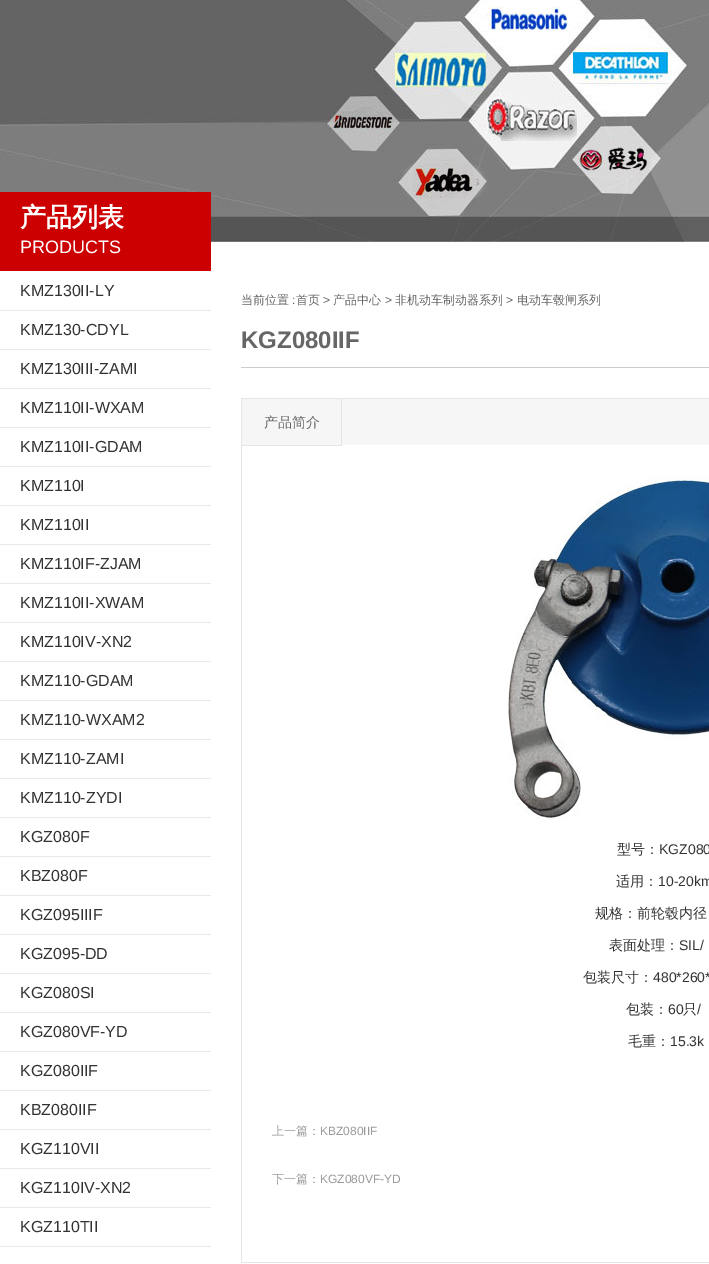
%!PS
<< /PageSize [709 1264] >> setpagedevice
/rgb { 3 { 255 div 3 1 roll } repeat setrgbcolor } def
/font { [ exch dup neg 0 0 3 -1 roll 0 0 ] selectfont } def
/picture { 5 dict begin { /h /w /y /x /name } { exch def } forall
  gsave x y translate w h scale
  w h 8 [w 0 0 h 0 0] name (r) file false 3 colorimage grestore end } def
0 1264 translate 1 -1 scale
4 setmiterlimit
255 255 255 rgb
0 0 709 1264 rectfill
(img/1.rgb) 0 0 709 242 picture
[
  [0 192 211 79 204 0 0]
  [0 310 211 1 233 233 233]
  [0 349 211 1 233 233 233]
  [0 388 211 1 233 233 233]
  [0 427 211 1 233 233 233]
  [0 466 211 1 233 233 233]
  [0 505 211 1 233 233 233]
  [0 544 211 1 233 233 233]
  [0 583 211 1 233 233 233]
  [0 622 211 1 233 233 233]
  [0 661 211 1 233 233 233]
  [0 700 211 1 233 233 233]
  [0 739 211 1 233 233 233]
  [0 778 211 1 233 233 233]
  [0 817 211 1 233 233 233]
  [0 856 211 1 233 233 233]
  [0 895 211 1 233 233 233]
  [0 934 211 1 233 233 233]
  [0 973 211 1 233 233 233]
  [0 1012 211 1 233 233 233]
  [0 1051 211 1 233 233 233]
  [0 1090 211 1 233 233 233]
  [0 1129 211 1 233 233 233]
  [0 1168 211 1 233 233 233]
  [0 1207 211 1 233 233 233]
  [0 1246 211 1 233 233 233]
  [241 367 468 1 204 204 204]
  [241 398 468 1 229 229 229]
  [241 1262 468 1 229 229 229]
  [342 399 367 46 246 246 246]
  [242 399 99 46 246 246 246]
  [341 399 1 47 229 229 229]
  [241 445 101 1 229 229 229]
  [241 399 1 863 229 229 229]
] { aload pop rgb rectfill } forall
(img/2.rgb) 508 477 201 342 picture
/WenQuanYiZenHei-Bold 26 font
255 255 255 rgb
20 226 moveto (产品列表) show
/LiberationSans-Regular 18 font
20 253 moveto (PRODUCTS) show
/LiberationSans-Regular 16 font
51 51 51 rgb
[
  [(KMZ130II-LY) 20 296]
  [(KMZ130-CDYL) 20 335]
  [(KMZ130III-ZAMI) 20 374]
  [(KMZ110II-WXAM) 20 413]
  [(KMZ110II-GDAM) 20 452]
  [(KMZ110I) 20 491]
  [(KMZ110II) 20 530]
  [(KMZ110IF-ZJAM) 20 569]
  [(KMZ110II-XWAM) 20 608]
  [(KMZ110IV-XN2) 20 647]
  [(KMZ110-GDAM) 20 686]
  [(KMZ110-WXAM2) 20 725]
  [(KMZ110-ZAMI) 20 764]
  [(KMZ110-ZYDI) 20 803]
  [(KGZ080F) 20 842]
  [(KBZ080F) 20 881]
  [(KGZ095IIIF) 20 920]
  [(KGZ095-DD) 20 959]
  [(KGZ080SI) 20 998]
  [(KGZ080VF-YD) 20 1037]
  [(KGZ080IIF) 20 1076]
  [(KBZ080IIF) 20 1115]
  [(KGZ110VII) 20 1154]
  [(KGZ110IV-XN2) 20 1193]
  [(KGZ110TII) 20 1232]
] { aload pop moveto show } forall
/WenQuanYiZenHei-Medium 12 font
102 102 102 rgb
241 304 moveto (当前位置) show
/LiberationSans-Regular 12 font
292 304 moveto (:) show
/WenQuanYiZenHei-Medium 12 font
296 304 moveto (首页) show
/LiberationSans-Regular 12 font
323 304 moveto (>) show
/WenQuanYiZenHei-Medium 12 font
333 304 moveto (产品中心) show
/LiberationSans-Regular 12 font
385 304 moveto (>) show
/WenQuanYiZenHei-Medium 12 font
395 304 moveto (非机动车制动器系列) show
/LiberationSans-Regular 12 font
506 304 moveto (>) show
/WenQuanYiZenHei-Medium 12 font
517 304 moveto (电动车毂闸系列) show
/LiberationSans-Bold 24 font
241 348 moveto (KGZ080IIF) show
/WenQuanYiZenHei-Medium 14 font
264 427 moveto (产品简介) show
51 51 51 rgb
617 854 moveto (型号：) show
/LiberationSans-Regular 14 font
659 854 moveto (KGZ080) show
/WenQuanYiZenHei-Medium 14 font
616 886 moveto (适用：) show
/LiberationSans-Regular 14 font
658 886 moveto (10-20km) show
/WenQuanYiZenHei-Medium 14 font
595 918 moveto (规格：前轮毂内径) show
609 950 moveto (表面处理：) show
/LiberationSans-Regular 14 font
679 950 moveto (SIL/) show
/WenQuanYiZenHei-Medium 14 font
583 982 moveto (包装尺寸：) show
/LiberationSans-Regular 14 font
653 982 moveto (480*260*) show
/WenQuanYiZenHei-Medium 14 font
626 1014 moveto (包装：) show
/LiberationSans-Regular 14 font
668 1014 moveto (60) show
/WenQuanYiZenHei-Medium 14 font
683 1014 moveto (只) show
/LiberationSans-Regular 14 font
697 1014 moveto (/) show
/WenQuanYiZenHei-Medium 14 font
628 1046 moveto (毛重：) show
/LiberationSans-Regular 14 font
670 1046 moveto (15.3k) show
/WenQuanYiZenHei-Medium 12 font
153 153 153 rgb
272 1135 moveto (上一篇：) show
/LiberationSans-Regular 12 font
320 1135 moveto (KBZ080IIF) show
/WenQuanYiZenHei-Medium 12 font
272 1183 moveto (下一篇：) show
/LiberationSans-Regular 12 font
320 1183 moveto (KGZ080VF-YD) show
showpage
